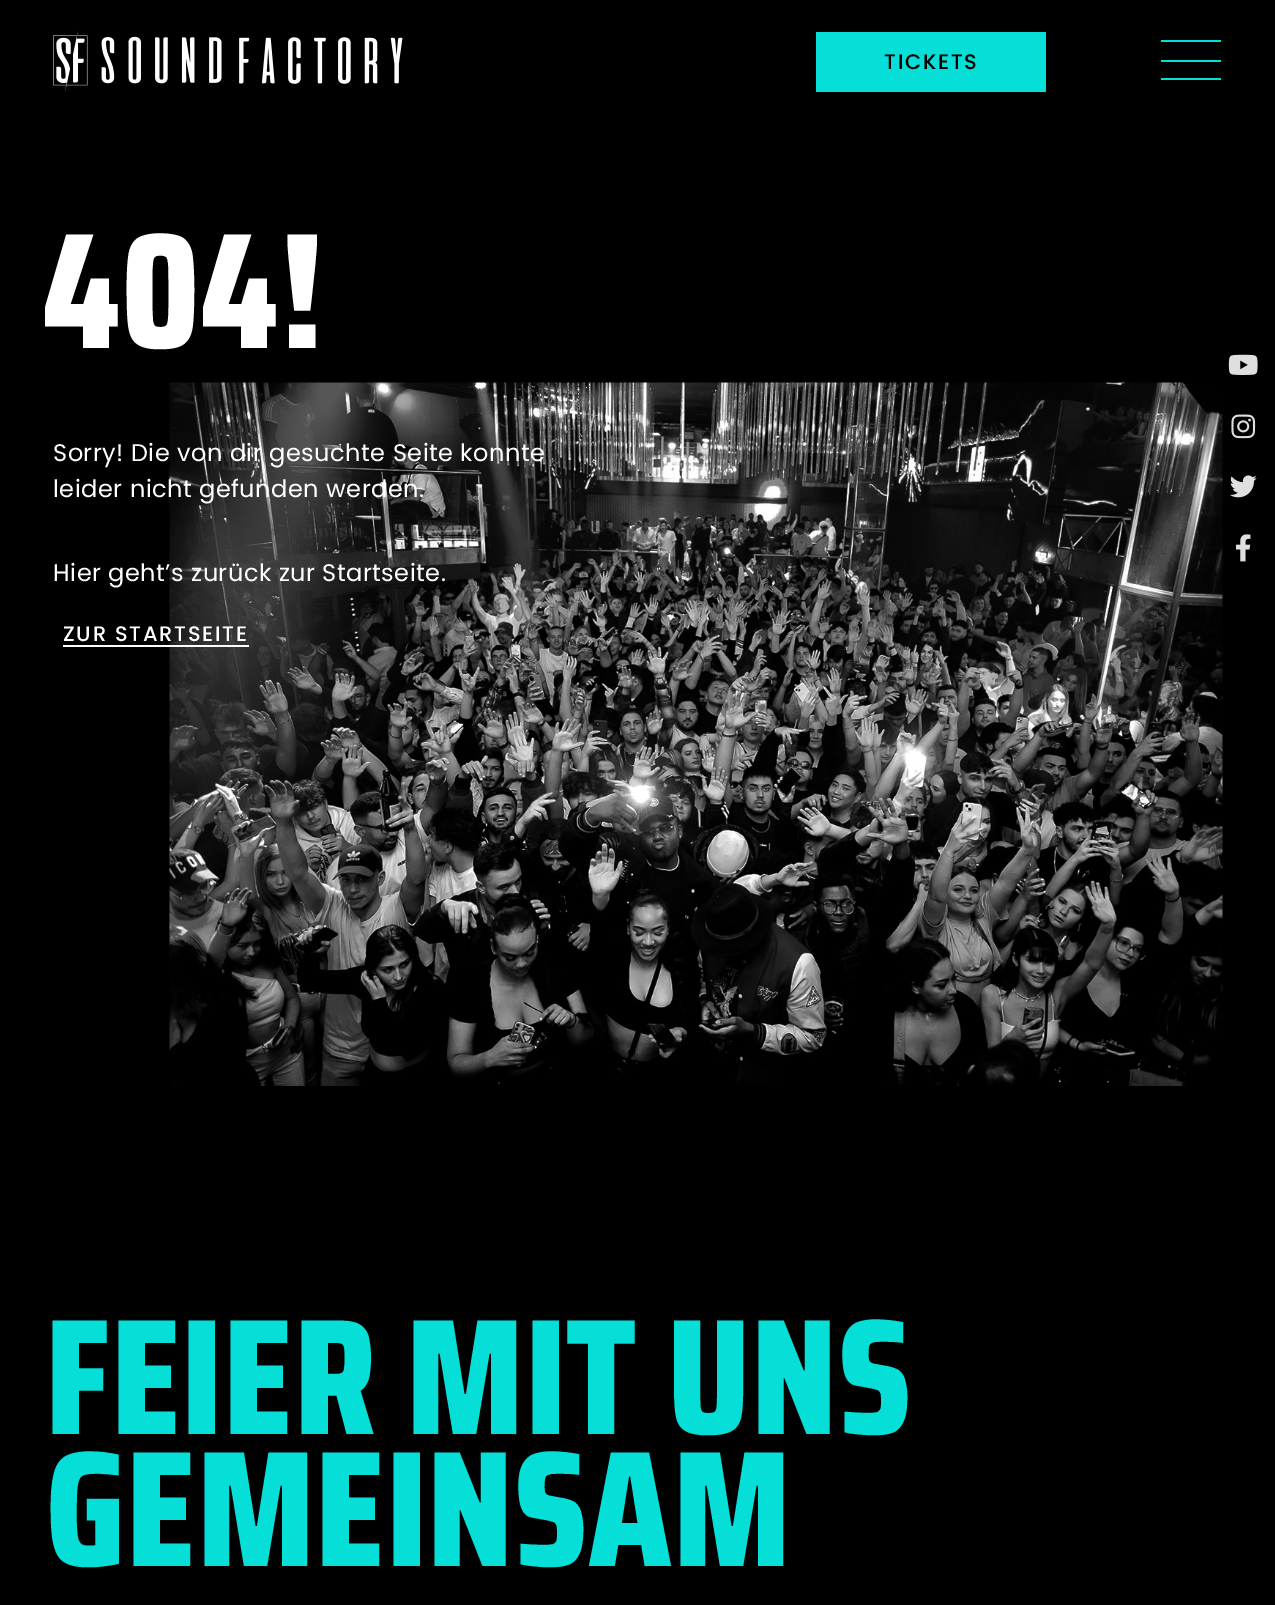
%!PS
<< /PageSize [1275 1605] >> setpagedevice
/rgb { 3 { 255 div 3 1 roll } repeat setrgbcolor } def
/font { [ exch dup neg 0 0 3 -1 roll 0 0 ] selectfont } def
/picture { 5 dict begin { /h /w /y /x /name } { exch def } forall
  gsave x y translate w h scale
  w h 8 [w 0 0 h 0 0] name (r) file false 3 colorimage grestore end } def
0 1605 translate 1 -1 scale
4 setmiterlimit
0 0 0 rgb
0 0 1275 1605 rectfill
(img/1.rgb) 53 31 350 61 picture
[
  [816 32 230 60 5 223 215]
  [1161 78 60 2 5 223 215]
  [1161 60 60 2 5 223 215]
  [1161 40 60 2 5 223 215]
] { aload pop rgb rectfill } forall
(img/2.rgb) 169 382 1054 704 picture
(img/3.rgb) 1228 354 30 21 picture
(img/4.rgb) 1231 414 25 25 picture
(img/5.rgb) 1230 475 27 23 picture
(img/6.rgb) 1236 534 15 28 picture
255 255 255 rgb
63 645 186 2 rectfill
/Poppins-Medium 21 font
0 0 0 rgb
884 69 moveto 1.75 0 (TICKETS) ashow
/SairaCondensed-ExtraBold 165 font
255 255 255 rgb
42 348 moveto 0.5 0 (404!) ashow
/Poppins-Regular 24 font
53 461 moveto 0.5 0 (Sorry! Die von dir gesuchte Seite konnte) ashow
53 497 moveto 0.5 0 (leider nicht gefunden werden.) ashow
53 581 moveto 0.5 0 (Hier geht’s zurück zur Startseite.) ashow
/Poppins-Medium 21 font
63 641 moveto 1.75 0 (ZUR STARTSEITE) ashow
/SairaCondensed-ExtraBold 165 font
5 223 215 rgb
45 1434 moveto 0.5 0 (FEIER MIT UNS) ashow
45 1566 moveto 0.5 0 (GEMEINSAM) ashow
showpage
